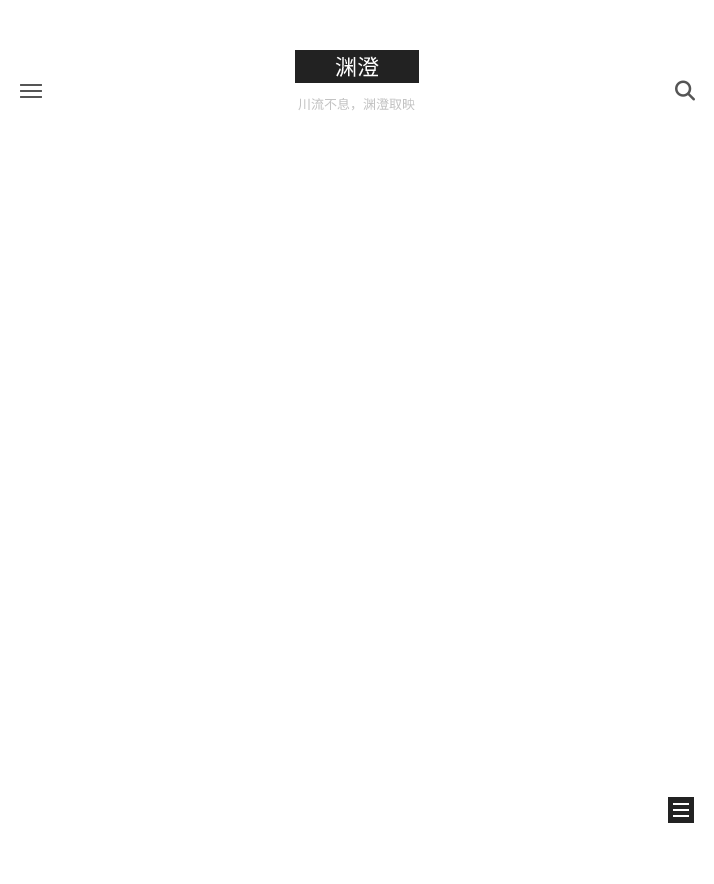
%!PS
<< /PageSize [714 884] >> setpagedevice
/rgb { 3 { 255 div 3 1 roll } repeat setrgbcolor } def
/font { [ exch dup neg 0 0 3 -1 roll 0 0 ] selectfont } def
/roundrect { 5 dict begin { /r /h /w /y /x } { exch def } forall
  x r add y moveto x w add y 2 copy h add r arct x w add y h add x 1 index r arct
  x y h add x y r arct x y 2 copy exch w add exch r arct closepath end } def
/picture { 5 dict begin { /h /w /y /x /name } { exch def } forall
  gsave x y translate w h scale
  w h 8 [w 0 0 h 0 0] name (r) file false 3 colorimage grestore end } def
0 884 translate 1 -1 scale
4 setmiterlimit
255 255 255 rgb
0 0 714 884 rectfill
85 85 85 rgb
20 84 22 2 1 roundrect fill
20 90 22 2 1 roundrect fill
20 96 22 2 1 roundrect fill
34 34 34 rgb
295 50 124 33 rectfill
(img/1.rgb) 675 80 20 21 picture
[
  [668 797 26 26 34 34 34]
  [673 803 16 2 255 255 255]
  [673 809 16 2 255 255 255]
  [673 815 16 2 255 255 255]
] { aload pop rgb rectfill } forall
/NotoSansCJKSC-Regular 22 font
335 75 moveto (渊澄) show
/NotoSansCJKSC-Regular 13 font
195 195 195 rgb
298 109 moveto (川流不息，渊澄取映) show
showpage
